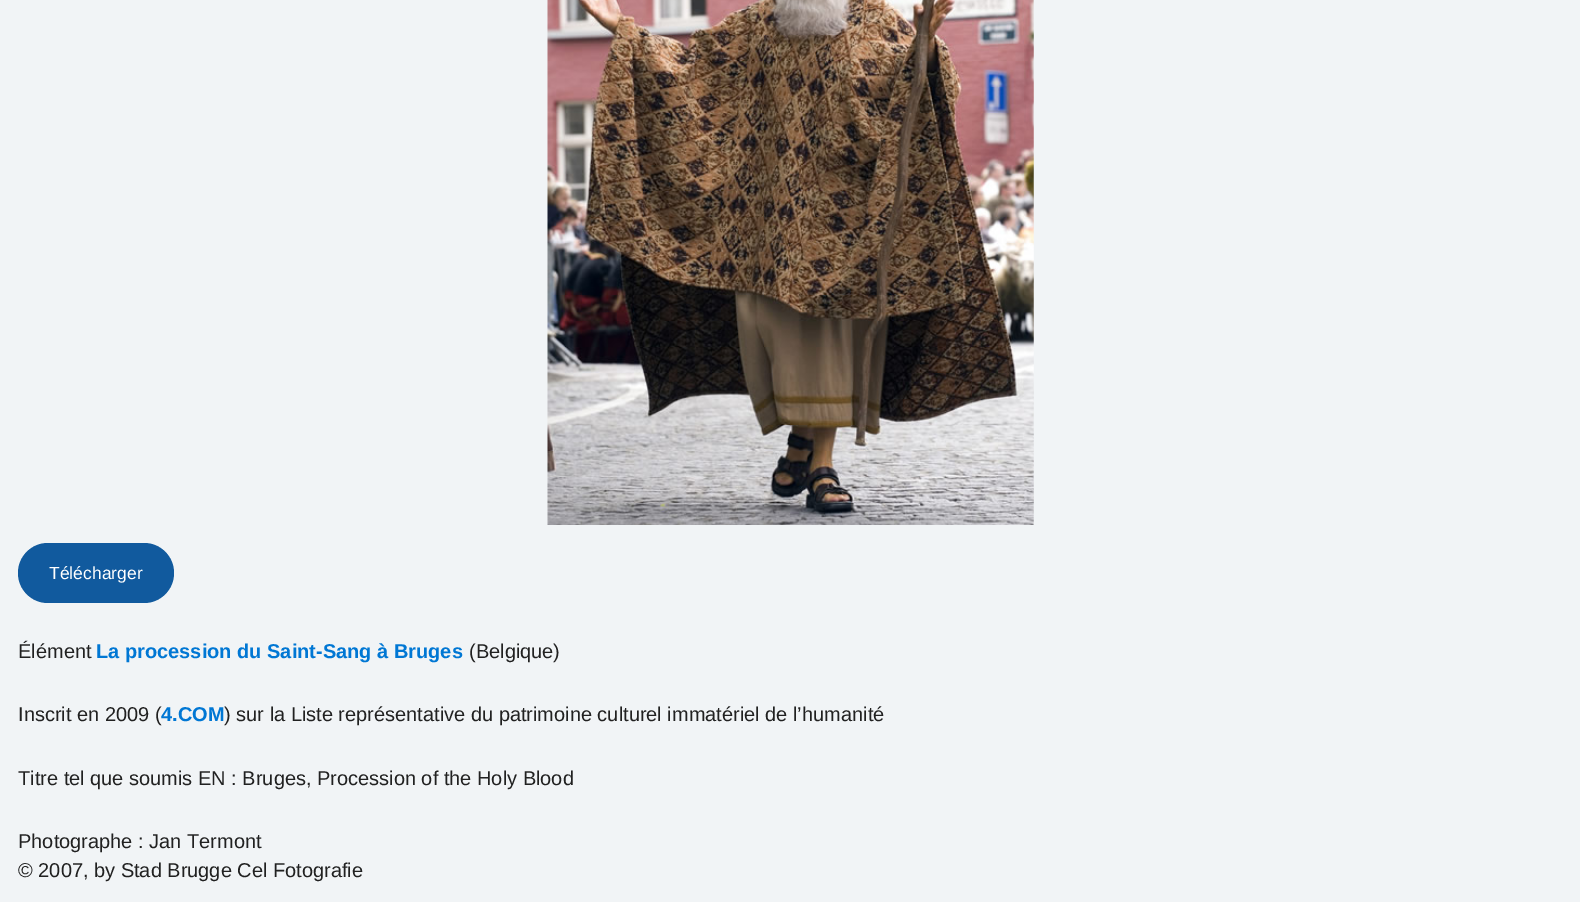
%!PS
<< /PageSize [1580 902] >> setpagedevice
/rgb { 3 { 255 div 3 1 roll } repeat setrgbcolor } def
/font { [ exch dup neg 0 0 3 -1 roll 0 0 ] selectfont } def
/roundrect { 5 dict begin { /r /h /w /y /x } { exch def } forall
  x r add y moveto x w add y 2 copy h add r arct x w add y h add x 1 index r arct
  x y h add x y r arct x y 2 copy exch w add exch r arct closepath end } def
/picture { 5 dict begin { /h /w /y /x /name } { exch def } forall
  gsave x y translate w h scale
  w h 8 [w 0 0 h 0 0] name (r) file false 3 colorimage grestore end } def
0 902 translate 1 -1 scale
4 setmiterlimit
241 244 246 rgb
0 0 1580 902 rectfill
(img/1.rgb) 547 0 487 525 picture
17 90 158 rgb
18 543 156 60 30 roundrect fill
/LiberationSans-Regular 17.5 font
255 255 255 rgb
49 579 moveto (Télécharger) show
/LiberationSans-Regular 20 font
33 33 33 rgb
18 658 moveto (Élément) show
/LiberationSans-Bold 20 font
0 119 212 rgb
96 658 moveto (La procession du Saint-Sang à Bruges) show
/LiberationSans-Regular 20 font
33 33 33 rgb
469 658 moveto (\(Belgique\)) show
18 721 moveto (Inscrit en 2009 \() show
/LiberationSans-Bold 20 font
0 119 212 rgb
161 721 moveto (4.COM) show
/LiberationSans-Regular 20 font
33 33 33 rgb
[
  [(\) sur la Liste représentative du patrimoine culturel immatériel de l’humanité) 224 721]
  [(Titre tel que soumis EN : Bruges, Procession of the Holy Blood) 18 785]
  [(Photographe : Jan Termont) 18 848]
  [(© 2007, by Stad Brugge Cel Fotografie) 18 877]
] { aload pop moveto show } forall
showpage
